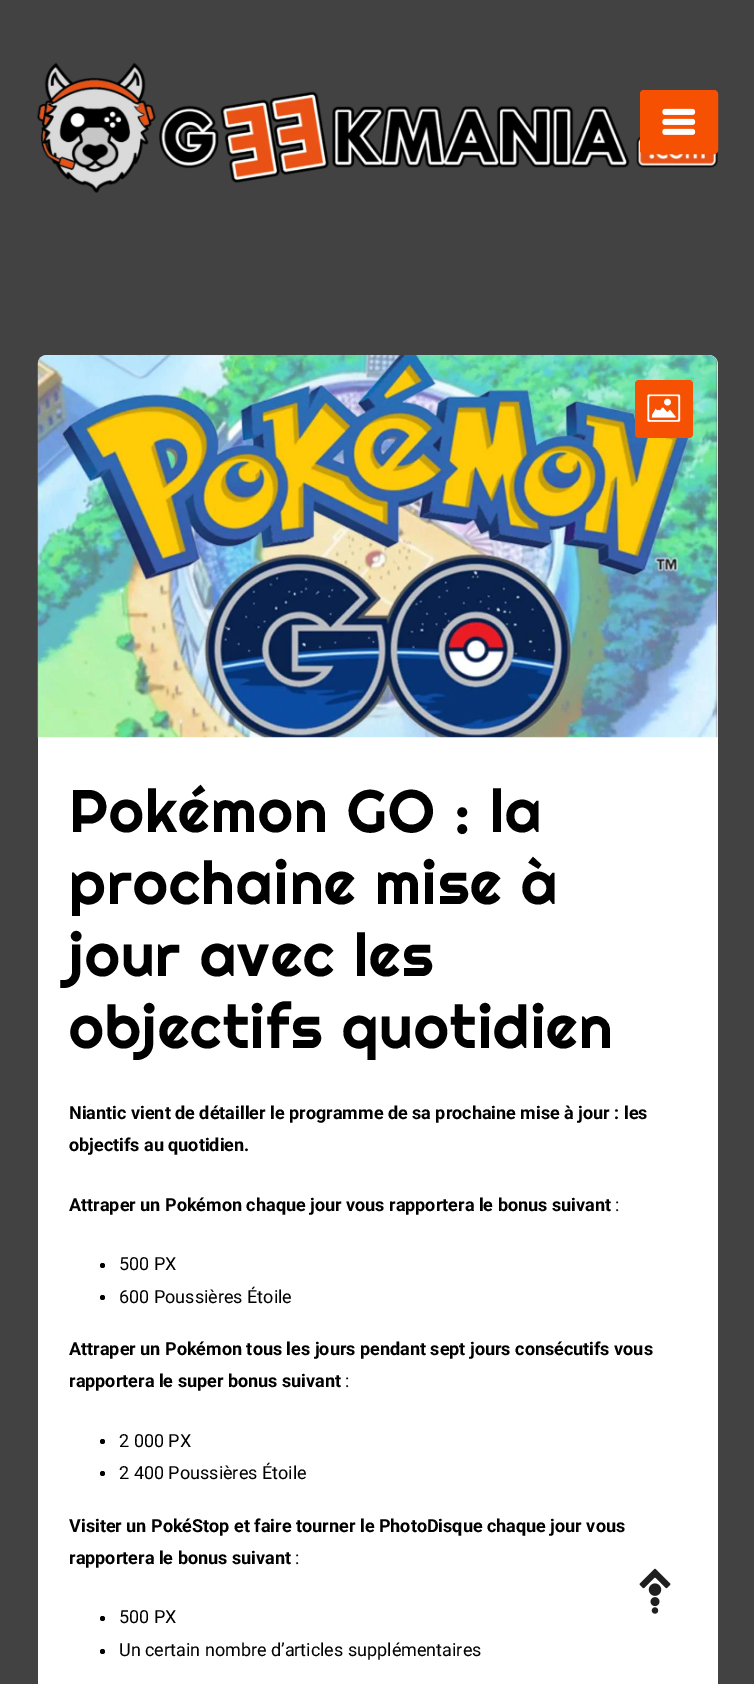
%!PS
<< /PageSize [754 1684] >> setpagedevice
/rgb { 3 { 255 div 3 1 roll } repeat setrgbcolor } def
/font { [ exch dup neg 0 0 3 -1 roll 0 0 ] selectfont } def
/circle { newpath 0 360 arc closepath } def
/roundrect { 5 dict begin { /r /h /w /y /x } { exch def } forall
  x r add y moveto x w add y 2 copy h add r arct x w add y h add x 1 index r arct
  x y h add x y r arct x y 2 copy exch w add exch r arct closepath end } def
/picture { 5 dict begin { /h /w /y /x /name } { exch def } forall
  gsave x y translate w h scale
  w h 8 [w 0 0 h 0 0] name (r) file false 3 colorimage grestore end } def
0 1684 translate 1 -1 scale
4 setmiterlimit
66 66 66 rgb
0 0 754 1684 rectfill
(img/1.rgb) 37 62 681 131 picture
246 80 2 rgb
640.5 90.5 77 63 3.5 roundrect gsave fill grestore
stroke
(img/2.rgb) 662 108 34 27 picture
255 255 255 rgb
47 355 moveto 709 355 lineto 714 355 718 359 718 364 curveto 718 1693 lineto 38 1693 lineto 38 364 lineto 38 359 42 355 47 355 curveto closepath fill
(img/3.rgb) 37 355 681 383 picture
246 80 2 rgb
635 380 58 58 4 roundrect fill
(img/4.rgb) 647 394 34 28 picture
0 0 0 rgb
102.5 1265.5 2.5 circle fill
102.5 1297.5 2.5 circle fill
102.5 1441.5 2.5 circle fill
102.5 1473.5 2.5 circle fill
102.5 1618.5 2.5 circle fill
102.5 1651.5 2.5 circle fill
(img/5.rgb) 639 1568 32 46 picture
/Righteous-Regular 60 font
69 832 moveto 1.25 0 (Pokémon GO : la) ashow
69 904 moveto 1.25 0 (prochaine mise à) ashow
69 976 moveto 1.25 0 (jour avec les) ashow
69 1048 moveto 1.25 0 (objectifs quotidien) ashow
/Roboto-Bold 18 font
[
  [(Niantic vient de détailler le programme de sa prochaine mise à jour : les) 69 1119]
  [(objectifs au quotidien.) 69 1151]
  [(Attraper un Pokémon chaque jour vous rapportera le bonus suivant) 69 1211]
] { aload pop moveto show } forall
/Roboto-Regular 18 font
[
  [(:) 615 1211]
  [(500 PX) 119 1270]
  [(600 Poussières Étoile) 119 1303]
] { aload pop moveto show } forall
/Roboto-Bold 18 font
69 1355 moveto (Attraper un Pokémon tous les jours pendant sept jours consécutifs vous) show
69 1387 moveto (rapportera le super bonus suivant) show
/Roboto-Regular 18 font
[
  [(:) 345 1387]
  [(2 000 PX) 119 1447]
  [(2 400 Poussières Étoile) 119 1479]
] { aload pop moveto show } forall
/Roboto-Bold 18 font
69 1532 moveto (Visiter un PokéStop et faire tourner le PhotoDisque chaque jour vous) show
69 1564 moveto (rapportera le bonus suivant) show
/Roboto-Regular 18 font
[
  [(:) 295 1564]
  [(500 PX) 119 1623]
  [(Un certain nombre d’articles supplémentaires) 119 1656]
] { aload pop moveto show } forall
showpage
